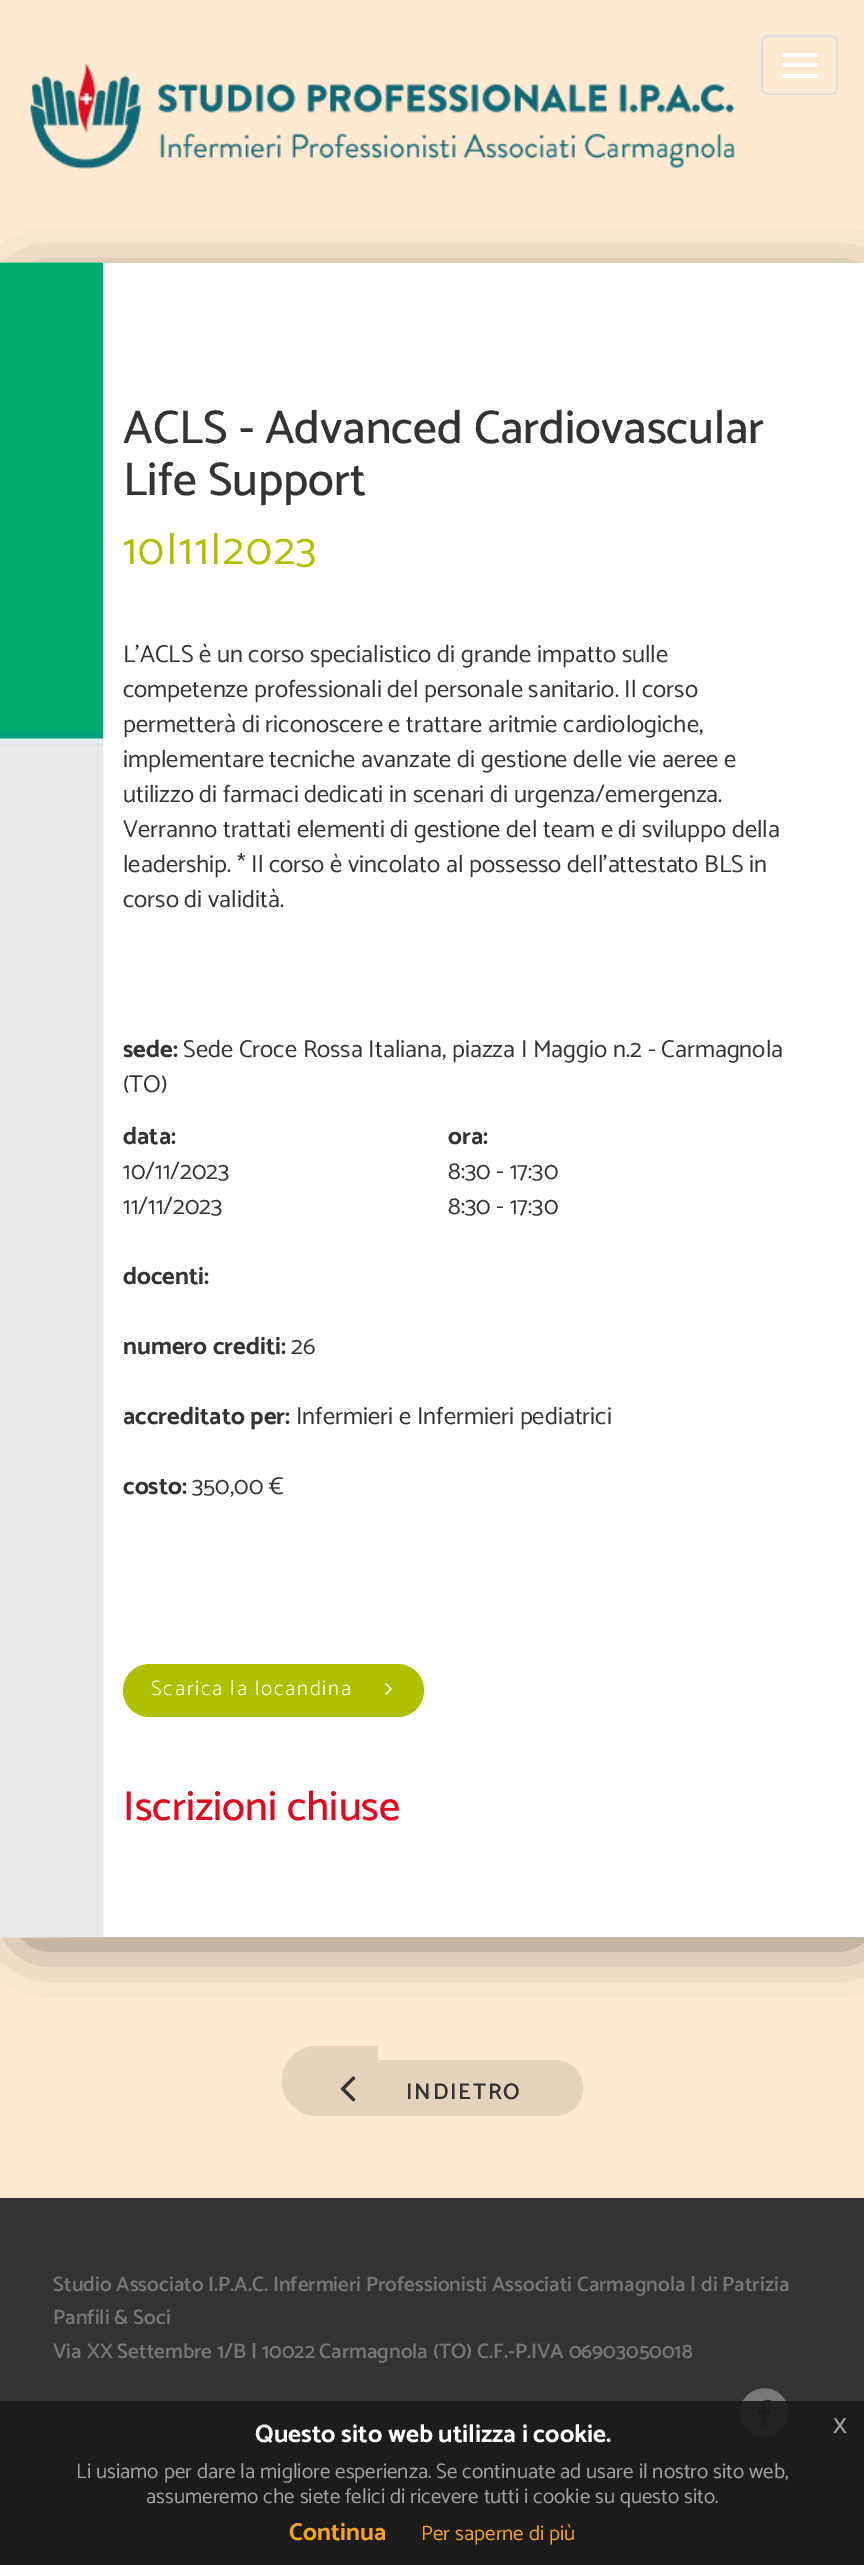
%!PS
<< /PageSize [864 2565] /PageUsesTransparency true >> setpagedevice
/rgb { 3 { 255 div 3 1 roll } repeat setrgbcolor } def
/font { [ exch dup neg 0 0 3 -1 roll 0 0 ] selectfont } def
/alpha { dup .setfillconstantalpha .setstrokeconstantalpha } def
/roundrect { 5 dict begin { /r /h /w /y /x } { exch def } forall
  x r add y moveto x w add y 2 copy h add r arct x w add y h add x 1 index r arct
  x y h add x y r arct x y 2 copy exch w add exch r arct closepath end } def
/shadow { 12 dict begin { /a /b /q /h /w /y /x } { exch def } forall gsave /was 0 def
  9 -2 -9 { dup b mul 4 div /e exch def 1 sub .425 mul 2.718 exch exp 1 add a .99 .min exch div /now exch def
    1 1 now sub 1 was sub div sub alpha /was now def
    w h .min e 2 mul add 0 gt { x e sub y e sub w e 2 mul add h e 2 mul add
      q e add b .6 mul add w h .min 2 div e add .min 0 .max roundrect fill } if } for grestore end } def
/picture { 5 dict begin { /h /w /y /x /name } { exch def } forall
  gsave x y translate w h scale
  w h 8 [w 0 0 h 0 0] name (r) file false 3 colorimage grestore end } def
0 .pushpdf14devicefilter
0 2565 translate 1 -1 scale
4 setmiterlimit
255 234 209 rgb
0 0 864 2565 rectfill
(img/1.rgb) 30 64 705 105 picture
221 221 221 rgb
2 setlinewidth
762 36 75 58 6 roundrect stroke
255 255 255 rgb
781 53 38 4 2 roundrect fill
781 63 38 4 2 roundrect fill
781 74 38 4 2 roundrect fill
0 0 0 rgb
33 296 823 1633 0 30.5 0.75 shadow
255 255 255 rgb
103 263 761 1674 rectfill
(img/2.rgb) 0 262 104 1676 picture
174 193 0 rgb
123 1664 301 53 26.5 roundrect fill
(img/3.rgb) 385 1683 7 12 picture
230 211 188 rgb
317 2046 moveto 378 2046 lineto 378 2116 lineto 317 2116 lineto 297.5 2116 282 2100.5 282 2081 curveto 282 2061.5 297.5 2046 317 2046 curveto closepath fill
378 2060 moveto 555 2060 lineto 570.5 2060 583 2072.5 583 2088 curveto 583 2103.5 570.5 2116 555 2116 curveto 378 2116 lineto closepath fill
(img/4.rgb) 340 2076 16 26 picture
51 51 51 rgb
0 2198 864 278 rectfill
119 119 119 rgb
785 2400 moveto 787 2405 788 2409 788 2414 curveto 787 2438 755 2445 743 2425 curveto 741 2420 740 2416 740 2411 curveto 742 2387 773 2380 785 2400 curveto closepath fill
(img/5.rgb) 757 2399 14 27 picture
[
  [0 2478 864 87 41 41 41]
  [0 2476 864 2 37 37 38]
] { aload pop rgb rectfill } forall
0.9 alpha
[
  [0 2401 864 164 25 25 25]
] { aload pop rgb rectfill } forall
/Catamaran-Medium 47.25 font
1 alpha
51 51 51 rgb
123 443 moveto (ACLS - Advanced Cardiovascular) show
123 495 moveto (Life Support) show
/Catamaran-Regular 43.75 font
174 193 0 rgb
123 564 moveto 1.75 0 (10|11|2023) ashow
/Catamaran-Regular 24.5 font
51 51 51 rgb
[
  [(L’ACLS è un corso specialistico di grande impatto sulle) 123 662]
  [(competenze professionali del personale sanitario. Il corso) 123 697]
  [(permetterà di riconoscere e trattare aritmie cardiologiche,) 123 732]
  [(implementare tecniche avanzate di gestione delle vie aeree e) 123 767]
  [(utilizzo di farmaci dedicati in scenari di urgenza/emergenza.) 123 802]
  [(Verranno trattati elementi di gestione del team e di sviluppo della) 123 837]
  [(leadership. * Il corso è vincolato al possesso dell’attestato BLS in) 123 872]
  [(corso di validità.) 123 907]
] { aload pop moveto show } forall
/Catamaran-Bold 24.5 font
123 1057 moveto (sede:) show
/Catamaran-Regular 24.5 font
183 1057 moveto (Sede Croce Rossa Italiana, piazza I Maggio n.2 - Carmagnola) show
123 1092 moveto (\(TO\)) show
/Catamaran-Bold 24.5 font
123 1144 moveto (data:) show
448 1144 moveto (ora:) show
/Catamaran-Regular 24.5 font
[
  [(10/11/2023) 123 1179]
  [(8:30 - 17:30) 448 1179]
  [(11/11/2023) 123 1214]
  [(8:30 - 17:30) 448 1214]
] { aload pop moveto show } forall
/Catamaran-Bold 24.5 font
123 1284 moveto (docenti:) show
123 1354 moveto (numero crediti:) show
/Catamaran-Regular 24.5 font
291 1354 moveto (26) show
/Catamaran-Bold 24.5 font
123 1424 moveto (accreditato per:) show
/Catamaran-Regular 24.5 font
296 1424 moveto (Infermieri e Infermieri pediatrici) show
/Catamaran-Bold 24.5 font
123 1494 moveto (costo:) show
/Catamaran-Regular 24.5 font
192 1494 moveto (350,00 €) show
/Catamaran-Light 21 font
255 255 255 rgb
151 1695 moveto 1.75 0 (Scarica la locandina) ashow
/Catamaran-Medium 42 font
223 12 31 rgb
123 1820 moveto (Iscrizioni chiuse) show
/Catamaran-SemiBold 22.75 font
51 51 51 rgb
406 2099 moveto 1.75 0 (INDIETRO) ashow
/Catamaran-SemiBold 21 font
119 119 119 rgb
[
  [(Studio Associato I.P.A.C. Infermieri Professionisti Associati Carmagnola | di Patrizia) 53 2291]
  [(Panfili & Soci) 53 2324]
  [(Via XX Settembre 1/B | 10022 Carmagnola \(TO\) C.F.-P.IVA 06903050018) 53 2358]
] { aload pop moveto show } forall
/Catamaran-Bold 25.25 font
255 255 255 rgb
255 2442 moveto (Questo sito web utilizza i cookie.) show
/LiberationSans-Regular 28 font
162 162 162 rgb
833 2433 moveto (x) show
/Catamaran-Regular 21 font
76 2478 moveto (Li usiamo per dare la migliore esperienza. Se continuate ad usare il nostro sito web,) show
146 2503 moveto (assumeremo che siete felici di ricevere tutti i cookie su questo sito.) show
/Catamaran-Bold 24.5 font
246 162 29 rgb
289 2540 moveto (Continua) show
/Catamaran-Regular 21 font
421 2540 moveto (Per saperne di più) show
.poppdf14devicefilter showpage
